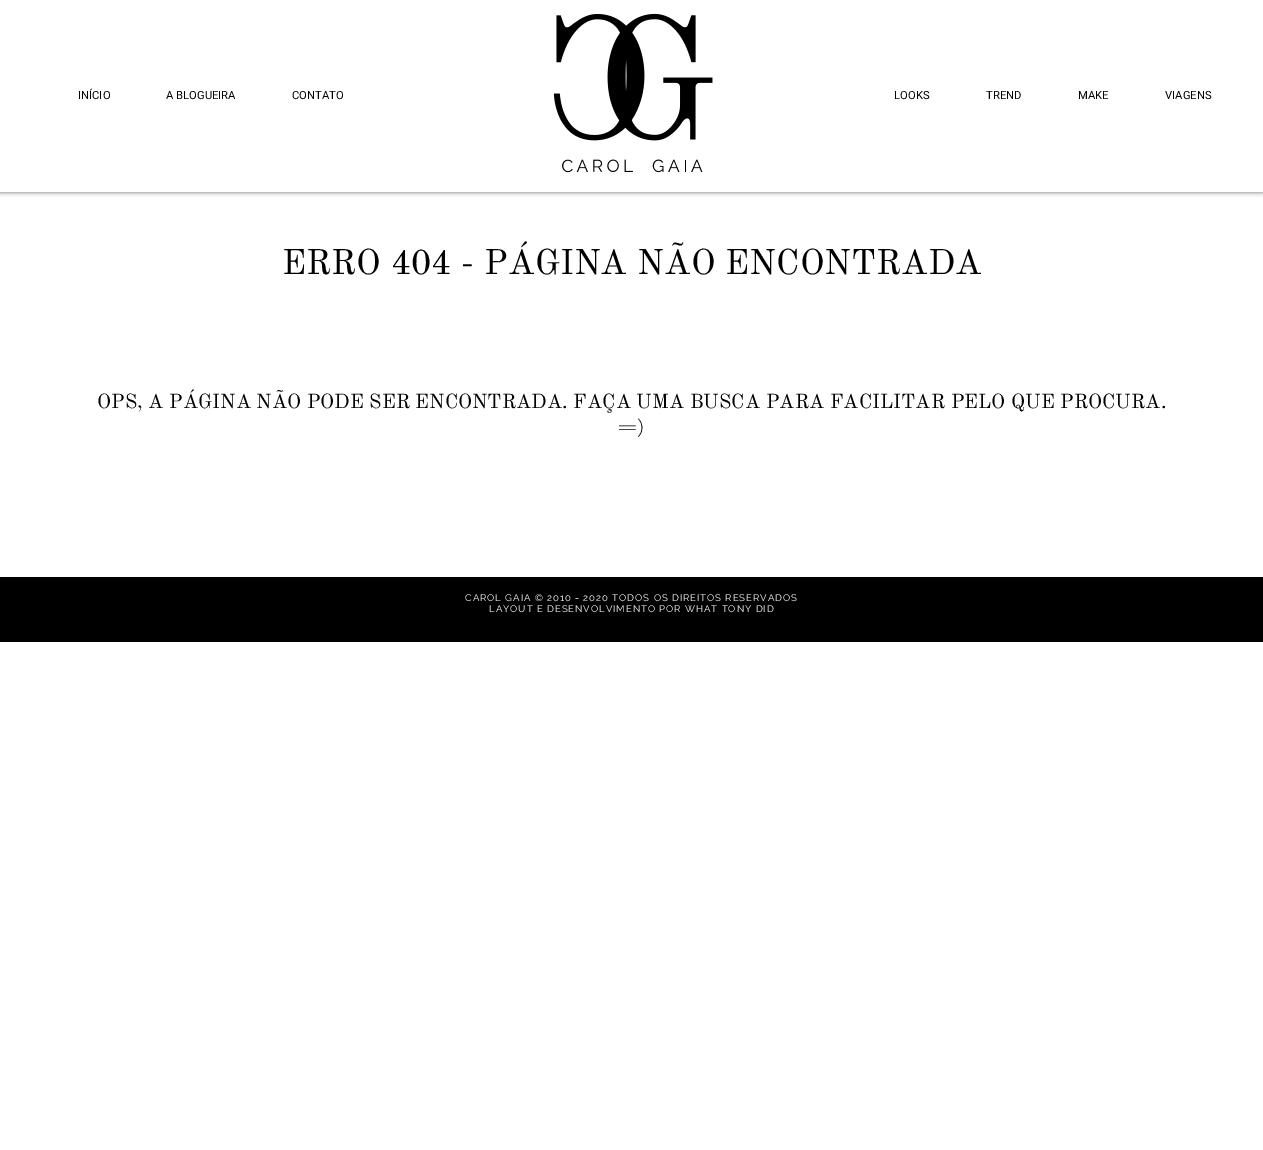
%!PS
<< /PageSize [1263 1150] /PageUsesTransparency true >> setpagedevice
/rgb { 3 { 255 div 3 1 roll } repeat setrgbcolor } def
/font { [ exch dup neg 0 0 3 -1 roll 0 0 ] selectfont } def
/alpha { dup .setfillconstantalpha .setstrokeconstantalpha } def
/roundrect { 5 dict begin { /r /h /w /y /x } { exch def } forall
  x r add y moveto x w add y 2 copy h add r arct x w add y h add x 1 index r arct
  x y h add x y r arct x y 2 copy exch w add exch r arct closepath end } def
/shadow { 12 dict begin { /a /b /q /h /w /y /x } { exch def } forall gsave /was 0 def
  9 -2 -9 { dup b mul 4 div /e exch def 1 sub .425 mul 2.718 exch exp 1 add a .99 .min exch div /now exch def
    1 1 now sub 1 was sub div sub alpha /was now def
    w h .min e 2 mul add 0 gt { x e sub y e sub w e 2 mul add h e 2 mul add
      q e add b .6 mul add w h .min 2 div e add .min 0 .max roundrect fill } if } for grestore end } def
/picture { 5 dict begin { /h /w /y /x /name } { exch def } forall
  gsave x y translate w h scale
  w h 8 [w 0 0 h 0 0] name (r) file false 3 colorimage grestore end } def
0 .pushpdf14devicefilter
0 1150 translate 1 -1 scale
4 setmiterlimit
255 255 255 rgb
0 0 1263 1150 rectfill
gsave
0 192 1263 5 rectclip
109 109 109 rgb
0 0 1263 192 0 2.5 1 shadow
grestore
(img/1.rgb) 553 13 160 160 picture
0 0 0 rgb
0 577 1263 65 rectfill
/Roboto-Regular 11.25 font
[
  [(INÍCIO) 78 99]
  [(A BLOGUEIRA) 166 99]
  [(CONTATO) 292 99]
  [(LOOKS) 894 99]
  [(TREND) 986 99]
  [(MAKE) 1078 99]
  [(VIAGENS) 1165 99]
] { aload pop moveto show } forall
/OldStandardTT-Regular 35 font
282 274 moveto (ERRO 404 - PÁGINA NÃO ENCONTRADA) show
/OldStandardTT-Regular 20 font
97 408 moveto (OPS, A PÁGINA NÃO PODE SER ENCONTRADA. FAÇA UMA BUSCA PARA FACILITAR PELO QUE PROCURA.) show
618 433 moveto (=\)) show
/Raleway-Regular 9.6 font
255 255 255 rgb
465 601 moveto 0.95 0 (CAROL GAIA © 2010 - 2020 TODOS OS DIREITOS RESERVADOS) ashow
489 612 moveto 0.95 0 (LAYOUT E DESENVOLVIMENTO POR WHAT TONY DID) ashow
.poppdf14devicefilter showpage
